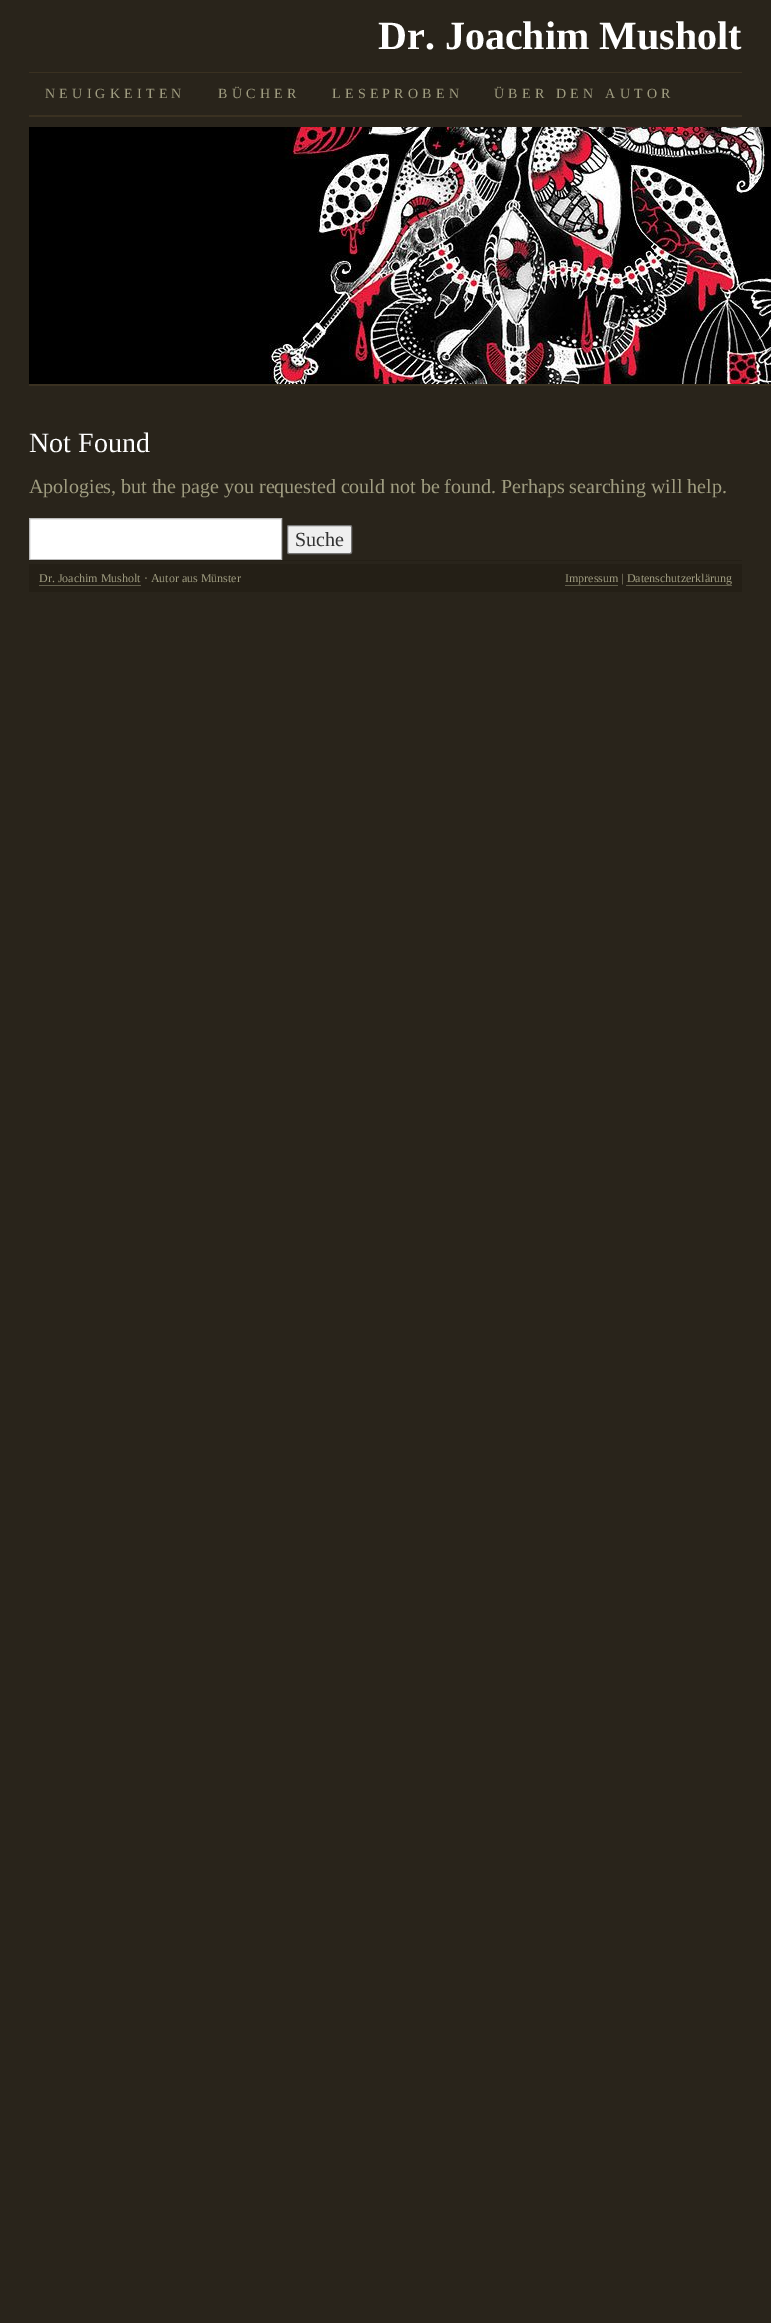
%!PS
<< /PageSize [771 2323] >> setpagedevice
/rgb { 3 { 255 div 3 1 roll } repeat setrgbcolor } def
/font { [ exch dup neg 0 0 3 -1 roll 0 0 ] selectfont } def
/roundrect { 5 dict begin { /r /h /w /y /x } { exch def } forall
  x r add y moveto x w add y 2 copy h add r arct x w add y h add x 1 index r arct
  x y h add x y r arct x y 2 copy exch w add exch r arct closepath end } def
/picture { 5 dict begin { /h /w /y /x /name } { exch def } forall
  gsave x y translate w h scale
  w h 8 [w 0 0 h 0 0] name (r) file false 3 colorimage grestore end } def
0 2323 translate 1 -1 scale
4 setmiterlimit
41 36 27 rgb
0 0 771 2323 rectfill
[
  [29 72 713 1 58 49 33]
  [29 115 713 2 58 49 33]
  [29 384 742 2 58 49 33]
] { aload pop rgb rectfill } forall
(img/1.rgb) 29 127 742 257 picture
255 255 255 rgb
29.5 518.5 moveto 281.5 518.5 lineto 281.5 559.5 lineto 29.5 559.5 lineto closepath gsave fill grestore
187 187 187 rgb
stroke
239 239 239 rgb
287.5 525.5 64 28 1.5 roundrect gsave fill grestore
118 118 118 rgb
stroke
[
  [29 560 713 1 36 31 22]
  [29 564 713 28 36 31 22]
  [39 585 102 1 100 96 78]
  [565 585 53 1 100 96 78]
  [626 585 106 1 100 96 78]
] { aload pop rgb rectfill } forall
/LiberationSerif-Bold 40 font
255 255 255 rgb
378 49 moveto (Dr. Joachim Musholt) show
/LiberationSerif-Regular 14 font
159 156 128 rgb
45 98 moveto 4.25 0 (NEUIGKEITEN) ashow
218 98 moveto 4.25 0 (BÜCHER) ashow
332 98 moveto 4.25 0 (LESEPROBEN) ashow
494 98 moveto 4.25 0 (ÜBER DEN AUTOR) ashow
/LiberationSerif-Regular 28 font
255 255 255 rgb
29 452 moveto (Not Found) show
/LiberationSerif-Regular 20 font
159 156 128 rgb
29 493 moveto (Apologies, but the page you requested could not be found. Perhaps searching will help.) show
51 51 51 rgb
295 546 moveto (Suche) show
/LiberationSerif-Regular 12 font
159 156 128 rgb
39 582 moveto (Dr. Joachim Musholt · Autor aus Münster) show
565 582 moveto (Impressum | Datenschutzerklärung) show
showpage
